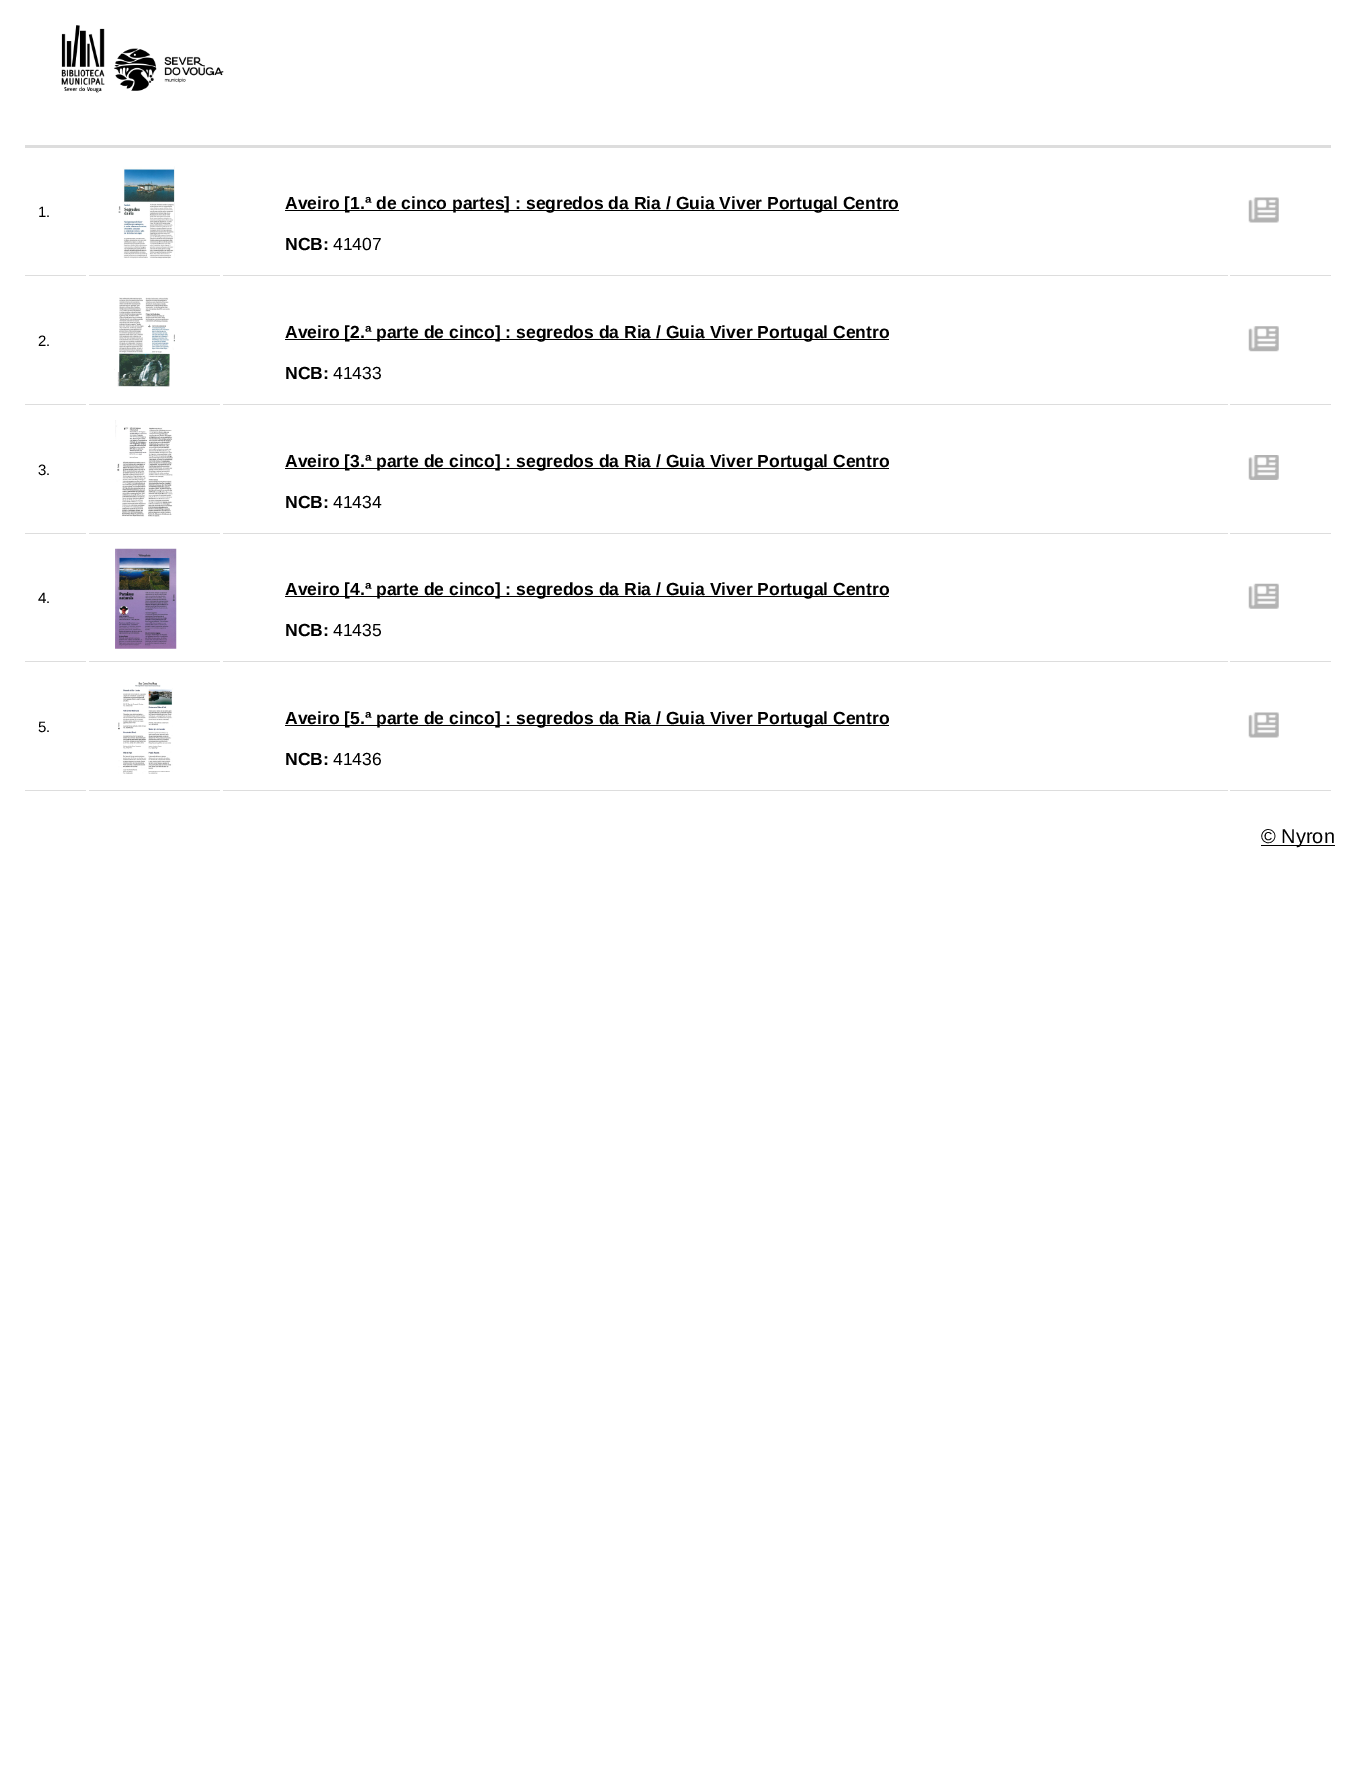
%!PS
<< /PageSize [1345 1792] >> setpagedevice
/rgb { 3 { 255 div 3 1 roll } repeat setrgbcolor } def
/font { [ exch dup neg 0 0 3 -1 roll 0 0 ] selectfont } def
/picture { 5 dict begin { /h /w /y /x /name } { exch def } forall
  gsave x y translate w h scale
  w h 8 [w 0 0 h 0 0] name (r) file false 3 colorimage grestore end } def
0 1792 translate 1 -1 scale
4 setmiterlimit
255 255 255 rgb
0 0 1345 1792 rectfill
(img/1.rgb) 61 25 163 68 picture
[
  [25 145 1306 3 221 221 221]
  [25 275 61 1 221 221 221]
  [89 275 131 1 221 221 221]
] { aload pop rgb rectfill } forall
(img/2.rgb) 118 166 57 93 picture
[
  [223 275 1005 1 221 221 221]
  [285 210 614 1 0 0 0]
  [1230 275 101 1 221 221 221]
] { aload pop rgb rectfill } forall
(img/3.rgb) 1248 197 31 26 picture
25 404 61 1 rectfill
89 404 131 1 rectfill
(img/4.rgb) 114 297 61 90 picture
[
  [223 404 1005 1 221 221 221]
  [285 339 604 1 0 0 0]
  [1230 404 101 1 221 221 221]
] { aload pop rgb rectfill } forall
(img/5.rgb) 1248 326 31 26 picture
25 533 61 1 rectfill
89 533 131 1 rectfill
(img/6.rgb) 115 420 58 97 picture
[
  [223 533 1005 1 221 221 221]
  [285 468 604 1 0 0 0]
  [1230 533 101 1 221 221 221]
] { aload pop rgb rectfill } forall
(img/7.rgb) 1248 455 31 25 picture
25 661 61 1 rectfill
89 661 131 1 rectfill
(img/8.rgb) 115 548 62 101 picture
[
  [223 661 1005 1 221 221 221]
  [285 596 604 1 0 0 0]
  [1230 661 101 1 221 221 221]
] { aload pop rgb rectfill } forall
(img/9.rgb) 1248 583 31 26 picture
25 790 61 1 rectfill
89 790 131 1 rectfill
(img/10.rgb) 118 682 55 92 picture
[
  [223 790 1005 1 221 221 221]
  [285 725 604 1 0 0 0]
  [1230 790 101 1 221 221 221]
] { aload pop rgb rectfill } forall
(img/3.rgb) 1248 712 31 26 picture
0 0 0 rgb
1261 845 74 1 rectfill
/LiberationSans-Regular 15 font
38 217 moveto (1.) show
/LiberationSans-Bold 17.5 font
285 209 moveto (Aveiro [1.ª de cinco partes] : segredos da Ria / Guia Viver Portugal Centro) show
285 250 moveto (NCB:) show
/LiberationSans-Regular 17.5 font
333 250 moveto (41407) show
/LiberationSans-Regular 15 font
38 346 moveto (2.) show
/LiberationSans-Bold 17.5 font
285 338 moveto (Aveiro [2.ª parte de cinco] : segredos da Ria / Guia Viver Portugal Centro) show
285 379 moveto (NCB:) show
/LiberationSans-Regular 17.5 font
333 379 moveto (41433) show
/LiberationSans-Regular 15 font
38 475 moveto (3.) show
/LiberationSans-Bold 17.5 font
285 467 moveto (Aveiro [3.ª parte de cinco] : segredos da Ria / Guia Viver Portugal Centro) show
285 508 moveto (NCB:) show
/LiberationSans-Regular 17.5 font
333 508 moveto (41434) show
/LiberationSans-Regular 15 font
38 603 moveto (4.) show
/LiberationSans-Bold 17.5 font
285 595 moveto (Aveiro [4.ª parte de cinco] : segredos da Ria / Guia Viver Portugal Centro) show
285 636 moveto (NCB:) show
/LiberationSans-Regular 17.5 font
333 636 moveto (41435) show
/LiberationSans-Regular 15 font
38 732 moveto (5.) show
/LiberationSans-Bold 17.5 font
285 724 moveto (Aveiro [5.ª parte de cinco] : segredos da Ria / Guia Viver Portugal Centro) show
285 765 moveto (NCB:) show
/LiberationSans-Regular 17.5 font
333 765 moveto (41436) show
/LiberationSans-Regular 20 font
1261 843 moveto (© Nyron) show
showpage
